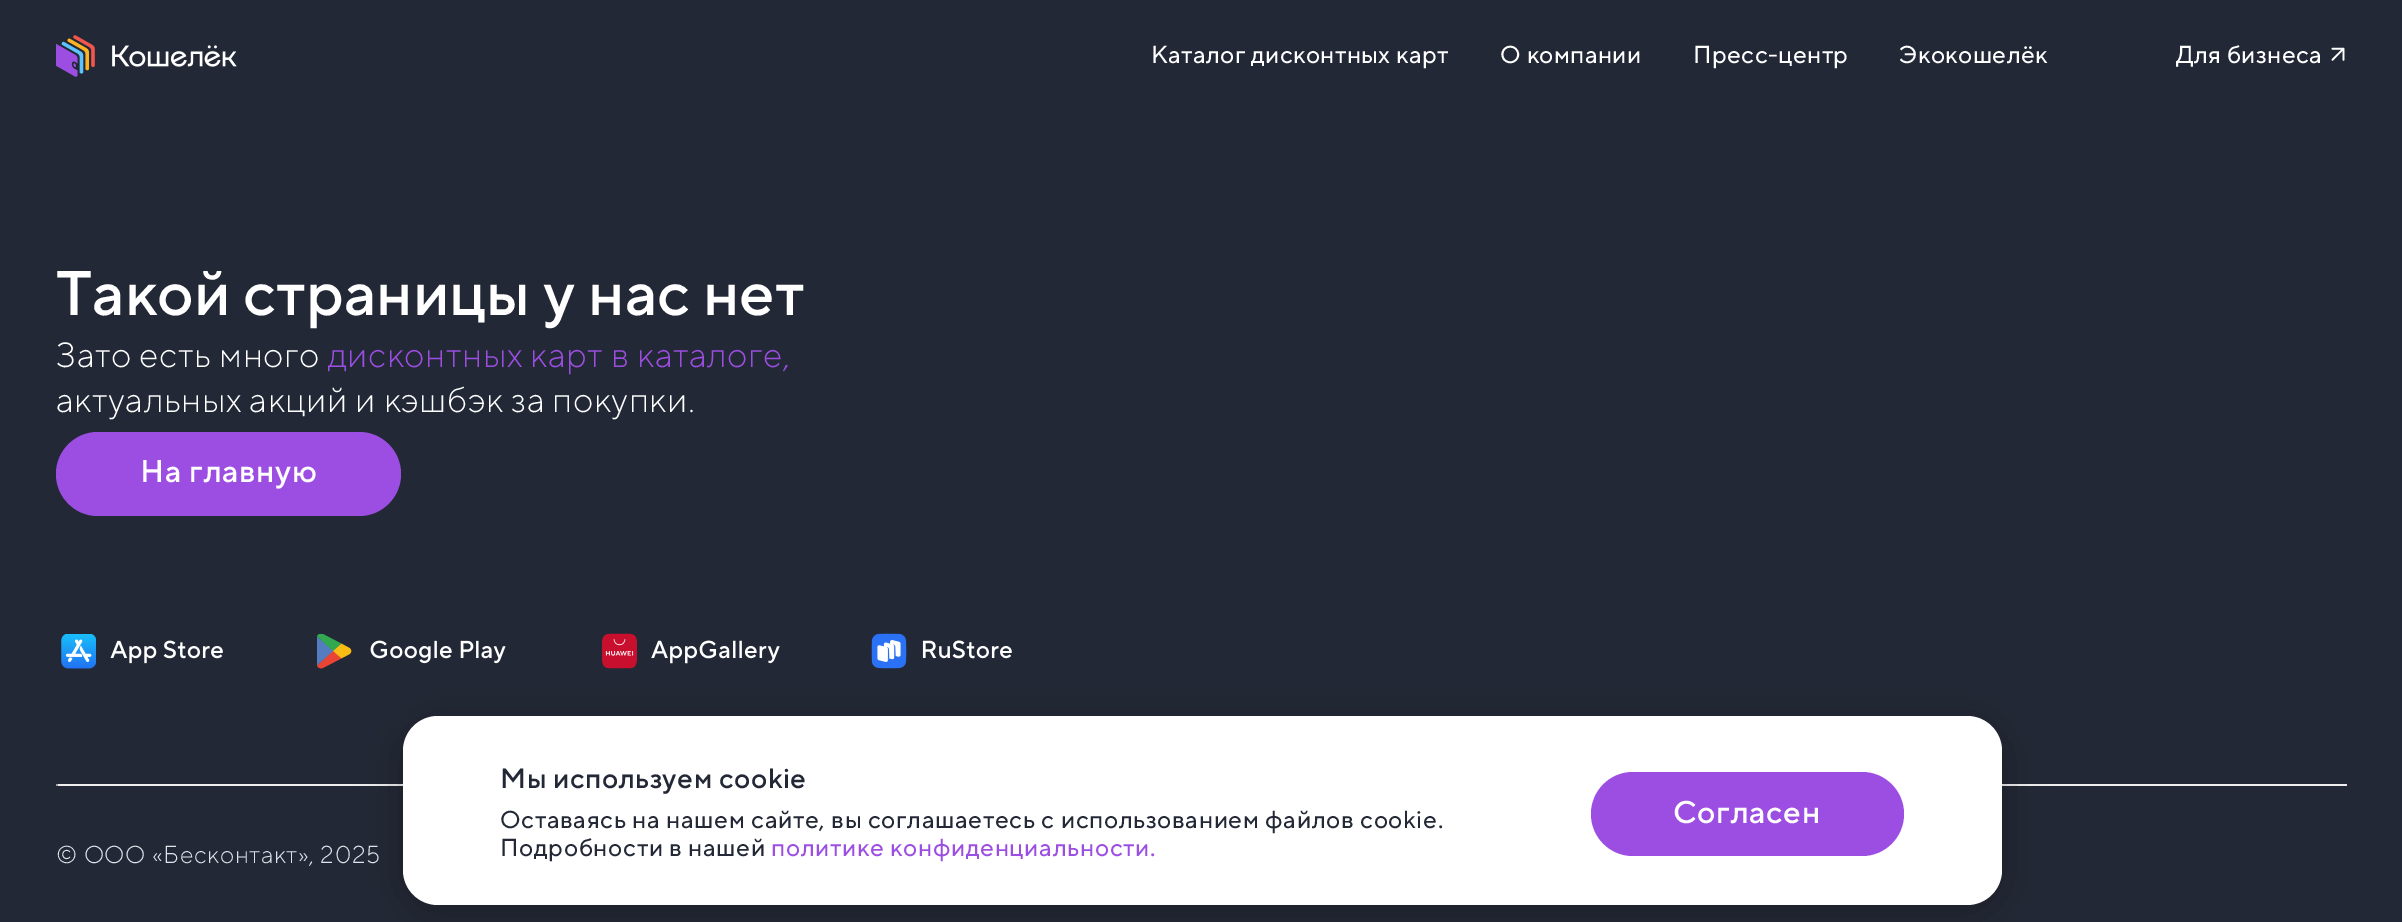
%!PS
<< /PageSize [2402 922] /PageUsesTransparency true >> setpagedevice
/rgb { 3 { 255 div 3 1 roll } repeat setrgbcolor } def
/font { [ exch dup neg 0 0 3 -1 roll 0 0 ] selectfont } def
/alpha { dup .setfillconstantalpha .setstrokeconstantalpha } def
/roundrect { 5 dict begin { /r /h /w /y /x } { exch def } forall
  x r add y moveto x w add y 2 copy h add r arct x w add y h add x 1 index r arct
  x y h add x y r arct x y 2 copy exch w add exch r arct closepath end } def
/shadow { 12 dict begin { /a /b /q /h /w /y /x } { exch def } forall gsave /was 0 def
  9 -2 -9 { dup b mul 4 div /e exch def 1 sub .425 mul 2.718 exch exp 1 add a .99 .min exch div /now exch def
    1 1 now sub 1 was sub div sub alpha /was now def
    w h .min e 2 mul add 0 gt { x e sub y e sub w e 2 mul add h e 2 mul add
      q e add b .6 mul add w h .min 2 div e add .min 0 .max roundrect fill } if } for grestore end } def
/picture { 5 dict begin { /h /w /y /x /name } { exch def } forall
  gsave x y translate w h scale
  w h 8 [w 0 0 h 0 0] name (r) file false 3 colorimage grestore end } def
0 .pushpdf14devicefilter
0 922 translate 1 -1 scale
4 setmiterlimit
34 40 53 rgb
0 0 2402 922 rectfill
(img/1.rgb) 56 35 181 42 picture
(img/2.rgb) 2331 47 14 14 picture
157 78 226 rgb
56 432 345 84 42 roundrect fill
(img/3.rgb) 61 634 162 35 picture
(img/4.rgb) 317 634 189 35 picture
(img/5.rgb) 602 633 178 36 picture
(img/6.rgb) 871 633 141 36 picture
238 238 238 rgb
56 784 2291 2 rectfill
159 159 159 rgb
56 784 2 2 rectfill
0 0 0 rgb
403 723 1599 189 35 21 0.25 shadow
255 255 255 rgb
403 716 1599 189 35 roundrect fill
157 78 226 rgb
1591 772 313 84 42 roundrect fill
/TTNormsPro-Regular 24.5 font
255 255 255 rgb
1151 63 moveto 0.4 0 (Каталог дисконтных карт) ashow
1500 63 moveto 0.4 0 (О компании) ashow
1693 63 moveto 0.4 0 (Пресс-центр) ashow
1899 63 moveto 0.4 0 (Экокошелёк) ashow
2176 63 moveto 0.4 0 (Для бизнеса) ashow
/TTNormsPro-Medium 63 font
56 315 moveto (Такой страницы у нас нет) show
/TTNormsPro-Light 35 font
56 367 moveto 0.6 0 (Зато есть много) ashow
157 78 226 rgb
328 367 moveto 0.6 0 (дисконтных карт в каталоге,) ashow
255 255 255 rgb
56 412 moveto 0.6 0 (актуальных акций и кэшбэк за покупки.) ashow
/TTNormsPro-Medium 31.5 font
140 482 moveto 0.75 0 (На главную) ashow
/TTNormsPro-Light 24.5 font
223 228 234 rgb
56 863 moveto 0.65 0 (© ООО «Бесконтакт», 2025) ashow
/TTNormsPro-Medium 28 font
34 40 53 rgb
500 788 moveto 0.6 0 (Мы используем cookie) ashow
/TTNormsPro-Regular 24.5 font
500 828 moveto 0.65 0 (Оставаясь на нашем сайте, вы соглашаетесь с использованием файлов cookie.) ashow
500 856 moveto 0.65 0 (Подробности в нашей) ashow
157 78 226 rgb
771 856 moveto 0.65 0 (политике конфиденциальности.) ashow
/TTNormsPro-Medium 31.5 font
255 255 255 rgb
1673 823 moveto 0.75 0 (Согласен) ashow
.poppdf14devicefilter showpage
